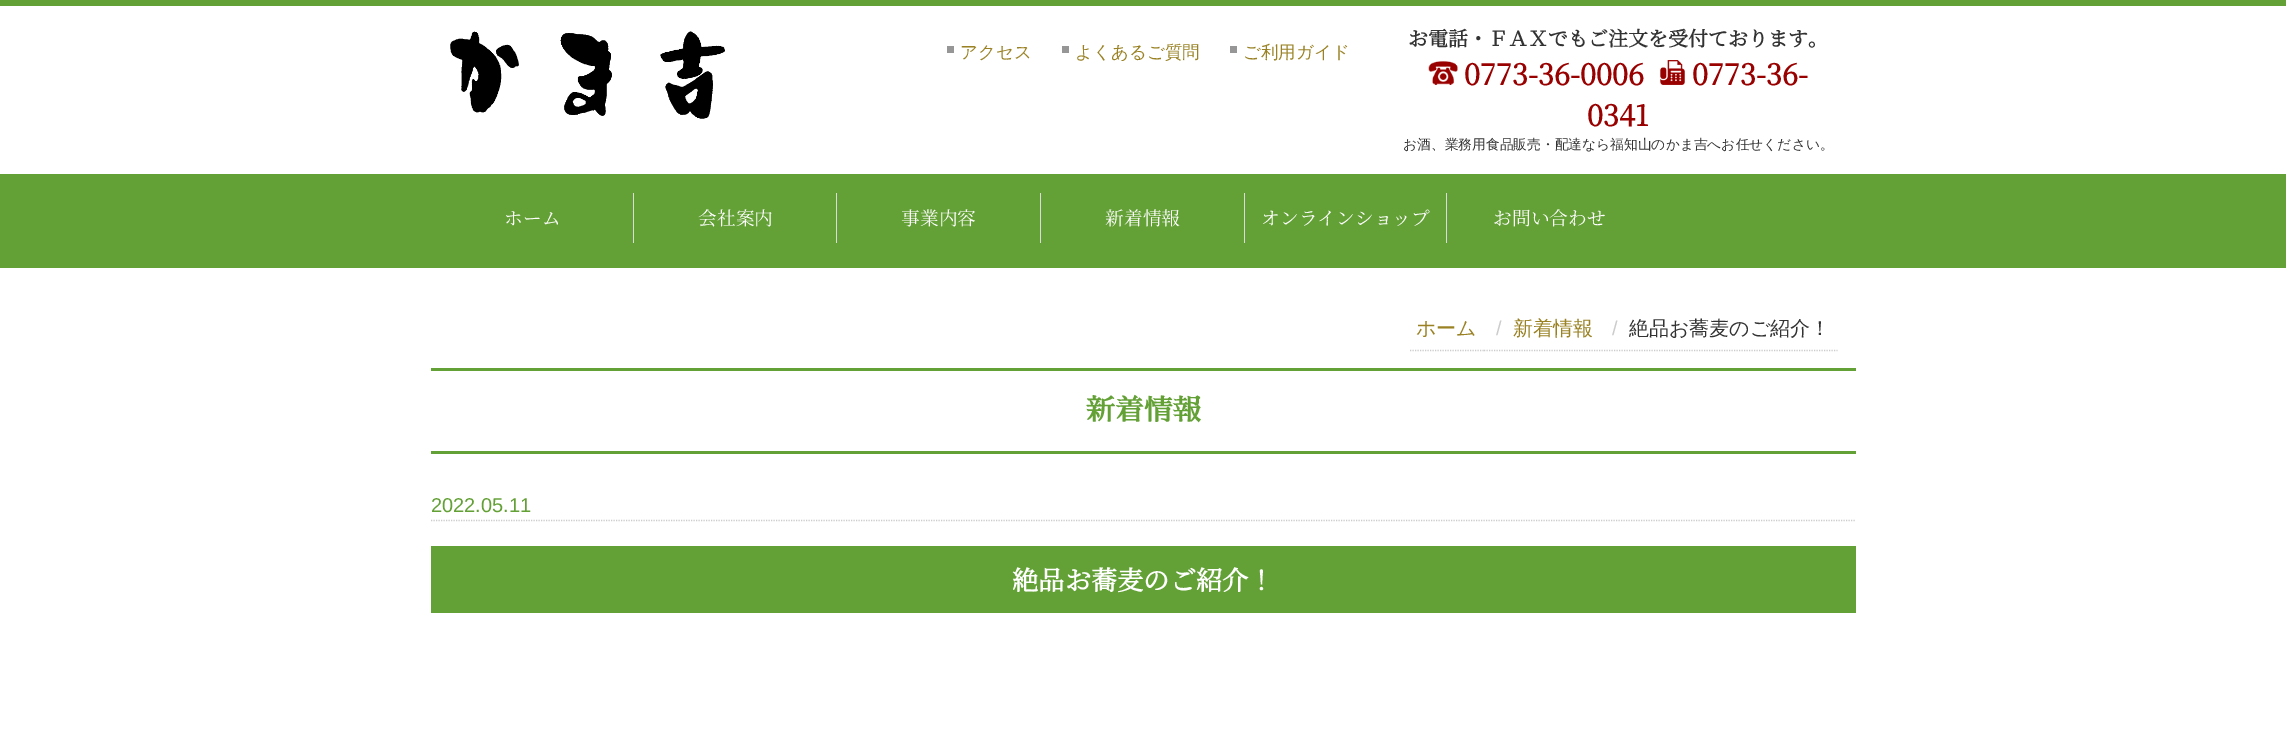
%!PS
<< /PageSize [2286 745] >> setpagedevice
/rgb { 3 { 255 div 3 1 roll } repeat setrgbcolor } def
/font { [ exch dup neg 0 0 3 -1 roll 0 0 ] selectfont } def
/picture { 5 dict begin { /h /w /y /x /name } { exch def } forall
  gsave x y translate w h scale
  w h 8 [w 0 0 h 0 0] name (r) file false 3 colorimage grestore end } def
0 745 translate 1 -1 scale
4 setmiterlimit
255 255 255 rgb
0 0 2286 745 rectfill
99 161 54 rgb
0 0 2286 6 rectfill
0 174 2286 94 rectfill
(img/1.rgb) 450 31 275 88 picture
[
  [947 46 7 7 150 150 150]
  [1062 46 7 7 150 150 150]
  [1230 46 7 7 150 150 150]
] { aload pop rgb rectfill } forall
(img/2.rgb) 1428 61 30 24 picture
(img/3.rgb) 1660 60 25 25 picture
[
  [633 193 1 50 219 219 219]
  [836 193 1 50 219 219 219]
  [1040 193 1 50 219 219 219]
  [1244 193 1 50 219 219 219]
  [1446 193 1 50 219 219 219]
] { aload pop rgb rectfill } forall
204 204 204 rgb
1.2 setlinewidth
[1.25 1.25] 0 setdash
1410 350.5 moveto 1484 350.5 lineto stroke
1484 350.5 moveto 1599 350.5 lineto stroke
1599 350.5 moveto 1837.5 350.5 lineto stroke
99 161 54 rgb
431 368 1425 3 rectfill
431 451 1425 3 rectfill
204 204 204 rgb
431 520.5 moveto 1856 520.5 lineto stroke
99 161 54 rgb
431 546 1425 67 rectfill
/WenQuanYiZenHei-Medium 17.5 font
154 130 36 rgb
[
  [(アクセス) 960 58]
  [(よくあるご質問) 1075 58]
  [(ご利用ガイド) 1243 58]
] { aload pop moveto show } forall
/NotoSerifJP-Bold 20 font
51 51 51 rgb
1408 46 moveto (お電話・ＦＡＸでもご注文を受付ております。) show
/NotoSerifJP-Bold 28.75 font
153 0 0 rgb
[
  [(0773-36-0006) 1464 85]
  [(0773-36-) 1692 85]
  [(0341) 1587 126]
] { aload pop moveto show } forall
/WenQuanYiZenHei-Medium 13.75 font
51 51 51 rgb
1403 149 moveto (お酒、業務用食品販売・配達なら福知山のかま吉へお任せください。) show
/NotoSerifJP-ExtraLight 18.75 font
255 255 255 rgb
[
  [(ホーム) 504 225]
  [(会社案内) 698 225]
  [(事業内容) 901 225]
  [(新着情報) 1105 225]
  [(オンラインショップ) 1261 225]
  [(お問い合わせ) 1493 225]
] { aload pop moveto show } forall
/WenQuanYiZenHei-Medium 20 font
154 130 36 rgb
1416 335 moveto (ホーム) show
/LiberationSans-Regular 20 font
204 204 204 rgb
1496 335 moveto (/) show
/WenQuanYiZenHei-Medium 20 font
154 130 36 rgb
1513 335 moveto (新着情報) show
/LiberationSans-Regular 20 font
204 204 204 rgb
1612 335 moveto (/) show
/WenQuanYiZenHei-Medium 20 font
51 51 51 rgb
1629 335 moveto (絶品お蕎麦のご紹介！) show
/SawarabiMincho-Bold 28.75 font
99 161 54 rgb
1086 420 moveto (新着情報) show
/LiberationSans-Regular 20 font
431 512 moveto (2022.05.11) show
/NotoSerifJP-Bold 26.25 font
255 255 255 rgb
1012 590 moveto (絶品お蕎麦のご紹介！) show
showpage
